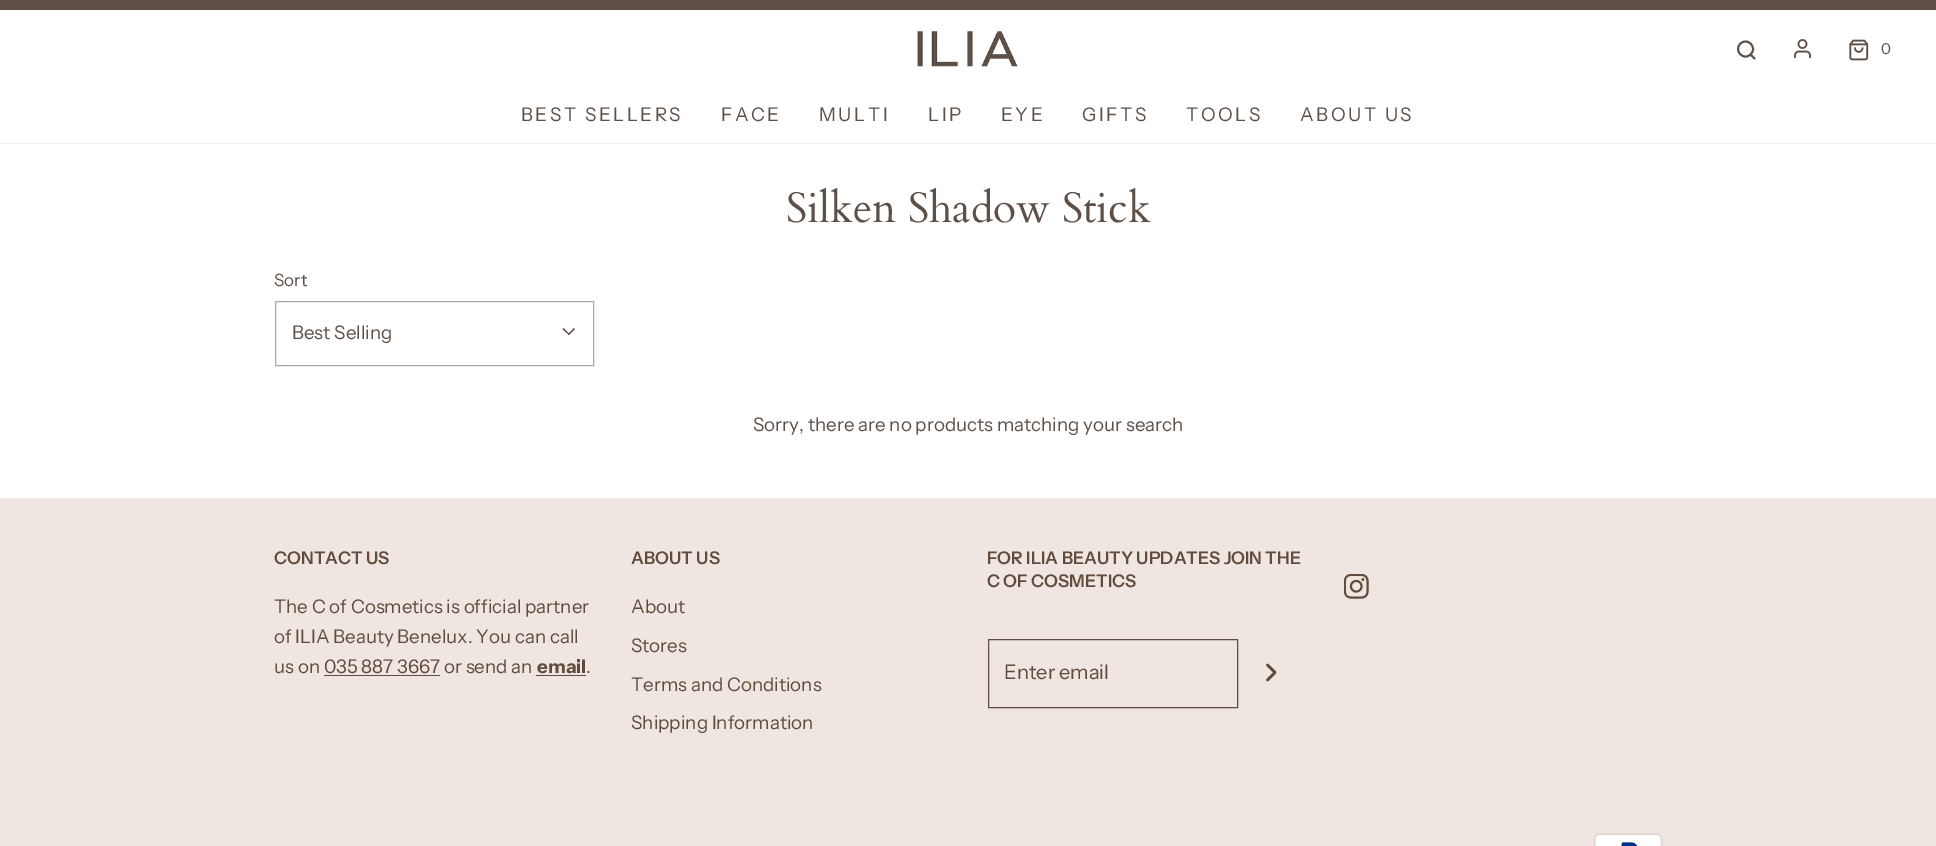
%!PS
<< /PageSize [1936 846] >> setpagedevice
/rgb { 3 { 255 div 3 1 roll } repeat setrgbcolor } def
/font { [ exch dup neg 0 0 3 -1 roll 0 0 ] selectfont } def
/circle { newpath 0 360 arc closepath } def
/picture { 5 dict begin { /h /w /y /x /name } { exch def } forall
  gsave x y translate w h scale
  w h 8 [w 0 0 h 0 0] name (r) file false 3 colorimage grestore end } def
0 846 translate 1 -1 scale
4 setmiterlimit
255 255 255 rgb
0 0 1936 846 rectfill
94 80 71 rgb
0 0 1936 10 rectfill
239 238 237 rgb
0 143 1936 1 rectfill
(img/1.rgb) 917 31 101 36 picture
94 80 71 rgb
1.9 setlinewidth
1745.5 49 7.5 circle stroke
1 setlinecap
1 setlinejoin
1754.5 58.5 moveto 1750.5 54.5 lineto stroke
(img/2.rgb) 1794 39 17 20 picture
(img/3.rgb) 1849 39 20 22 picture
175 168 163 rgb
1 setlinewidth
0 setlinecap
0 setlinejoin
275.5 301.5 318 64 rectstroke
94 80 71 rgb
574 328 moveto 575 329 lineto 569 335 lineto 568 334 lineto closepath fill
563.5 328 moveto 569.5 334 lineto 569 335 lineto 562.5 329 lineto closepath fill
[
  [0 498 1936 348 239 230 226]
  [536 675 50 1 96 75 60]
  [324 675 116 1 96 75 60]
] { aload pop rgb rectfill } forall
988.5 639.5 249 68 rectstroke
2.5 setlinewidth
1 setlinecap
1 setlinejoin
1267.5 680 moveto 1275 672.5 lineto 1267.5 665 lineto stroke
(img/4.rgb) 1344 574 25 25 picture
(img/5.rgb) 1594 833 69 13 picture
/InstrumentSans-Regular 15 font
94 80 71 rgb
1881 54 moveto (0) show
/InstrumentSans-Regular 18.75 font
521 121 moveto 2.5 0 (BEST SELLERS) ashow
721 121 moveto 2.5 0 (FACE) ashow
819 121 moveto 2.5 0 (MULTI) ashow
928 121 moveto 2.5 0 (LIP) ashow
1001 121 moveto 2.5 0 (EYE) ashow
1082 121 moveto 2.5 0 (GIFTS) ashow
1186 121 moveto 2.5 0 (TOOLS) ashow
1300 121 moveto 2.5 0 (ABOUT US) ashow
/Cardo-Regular 42.5 font
786 222 moveto (Silken Shadow Stick) show
/InstrumentSans-Regular 17 font
274 286 moveto (Sort) show
/InstrumentSans-Regular 18.75 font
292 339 moveto (Best Selling) show
753 431 moveto (Sorry, there are no products matching your search) show
/InstrumentSans-SemiBold 17.5 font
96 75 60 rgb
274 564 moveto (CONTACT US) show
/InstrumentSans-Regular 18.75 font
[
  [(The C of Cosmetics is official partner) 274 613]
  [(of ILIA Beauty Benelux. You can call) 274 643]
  [(us on 035 887 3667 or send an) 274 673]
] { aload pop moveto show } forall
/InstrumentSans-Bold 18.75 font
537 673 moveto (email) show
/InstrumentSans-Regular 18.75 font
586 673 moveto (.) show
/InstrumentSans-SemiBold 17.5 font
631 564 moveto (ABOUT US) show
/InstrumentSans-Regular 18.75 font
[
  [(About) 631 613]
  [(Stores) 631 652]
  [(Terms and Conditions) 631 691]
  [(Shipping Information) 631 729]
] { aload pop moveto show } forall
/InstrumentSans-SemiBold 17.5 font
987 564 moveto (FOR ILIA BEAUTY UPDATES JOIN THE) show
987 587 moveto (C OF COSMETICS) show
/InstrumentSans-Regular 20 font
1004 679 moveto (Enter email) show
showpage
